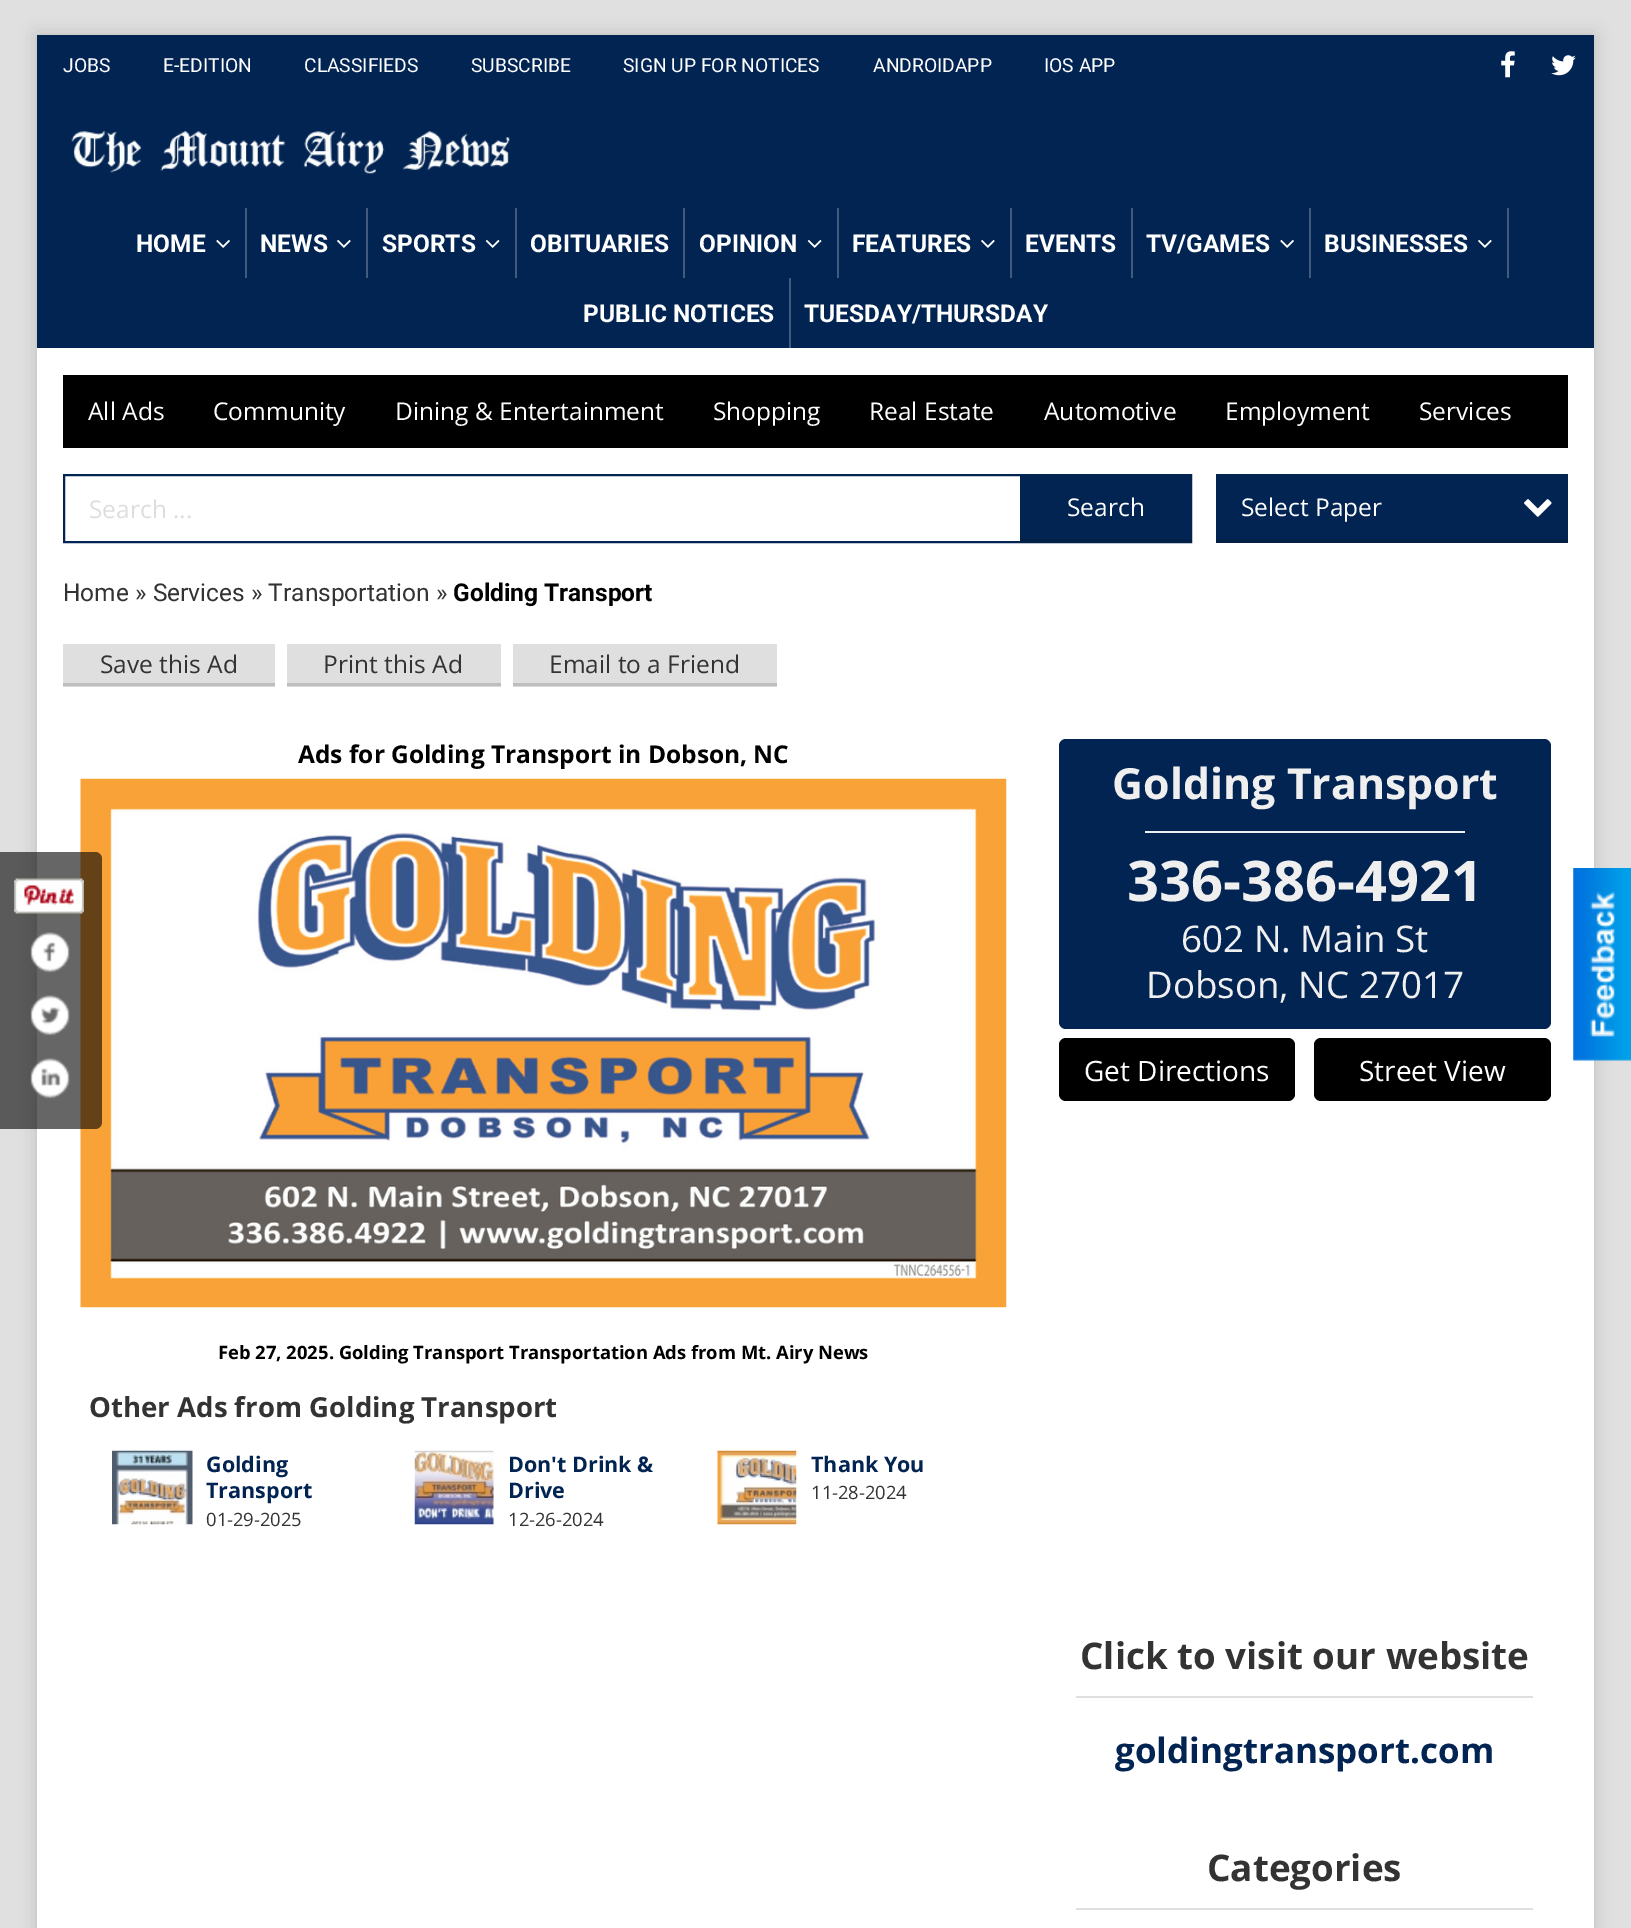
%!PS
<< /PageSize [1631 1928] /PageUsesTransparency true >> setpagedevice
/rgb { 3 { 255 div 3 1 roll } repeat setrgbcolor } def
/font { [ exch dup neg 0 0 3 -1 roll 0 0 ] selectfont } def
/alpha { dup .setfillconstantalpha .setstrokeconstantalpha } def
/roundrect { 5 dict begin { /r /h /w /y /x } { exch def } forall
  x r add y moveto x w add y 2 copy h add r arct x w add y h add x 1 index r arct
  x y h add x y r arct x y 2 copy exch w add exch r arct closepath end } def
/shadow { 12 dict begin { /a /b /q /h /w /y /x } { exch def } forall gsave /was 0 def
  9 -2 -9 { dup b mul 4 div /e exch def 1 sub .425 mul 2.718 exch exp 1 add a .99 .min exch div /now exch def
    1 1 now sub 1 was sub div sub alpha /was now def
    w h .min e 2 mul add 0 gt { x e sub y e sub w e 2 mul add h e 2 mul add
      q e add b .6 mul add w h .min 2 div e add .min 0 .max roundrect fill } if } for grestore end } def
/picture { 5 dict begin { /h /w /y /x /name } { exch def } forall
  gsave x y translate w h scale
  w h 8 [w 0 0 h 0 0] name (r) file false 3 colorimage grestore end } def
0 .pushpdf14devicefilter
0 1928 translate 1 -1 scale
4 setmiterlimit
224 224 224 rgb
0 0 1631 1928 rectfill
0 0 0 rgb
37 35 1557 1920 0 9 0.15 shadow
255 255 255 rgb
37 348 1557 1580 rectfill
(img/12.rgb) 80 778 927 530 picture
0.6 alpha
0 0 0 rgb
0 852 moveto 95 852 lineto 99 852 102 855 102 859 curveto 102 1122 lineto 102 1126 99 1129 95 1129 curveto 0 1129 lineto closepath fill
1 alpha
(img/1.rgb) 14 878 70 36 picture
(img/2.rgb) 30 932 40 41 picture
(img/3.rgb) 30 995 40 41 picture
(img/4.rgb) 30 1058 40 41 picture
[
  [513 686 264 1 217 217 217]
  [287 686 214 1 217 217 217]
  [63 686 212 1 217 217 217]
  [37 35 1557 313 2 36 82]
] { aload pop rgb rectfill } forall
(img/5.rgb) 1501 51 14 27 picture
(img/6.rgb) 1551 55 25 21 picture
(img/7.rgb) 71 131 439 43 picture
65 91 125 rgb
245 208 2 70 rectfill
(img/8.rgb) 216 240 14 8 picture
366 208 2 70 rectfill
(img/9.rgb) 337 240 14 8 picture
515 208 2 70 rectfill
(img/10.rgb) 485 240 15 8 picture
683 208 2 70 rectfill
837 208 2 70 rectfill
(img/10.rgb) 807 240 15 8 picture
1010 208 2 70 rectfill
(img/9.rgb) 981 240 14 8 picture
1131 208 2 70 rectfill
1309 208 2 70 rectfill
(img/8.rgb) 1280 240 14 8 picture
1507 208 2 70 rectfill
(img/9.rgb) 1478 240 14 8 picture
789 278 2 70 rectfill
0 0 0 rgb
63 375 1505 73 rectfill
2 36 82 rgb
2 setlinewidth
64 475 1127 67 rectstroke
[
  [1020 476 170 63 2 36 82]
  [1020 539 172 4 2 31 70]
  [1216 474 352 65 2 36 82]
  [1216 539 352 4 2 31 70]
] { aload pop rgb rectfill } forall
(img/11.rgb) 1524 499 28 18 picture
[
  [63 644 212 39 223 223 223]
  [63 683 212 3 190 190 190]
  [287 644 214 39 223 223 223]
  [287 683 214 3 190 190 190]
  [513 644 264 39 223 223 223]
  [513 683 264 3 190 190 190]
] { aload pop rgb rectfill } forall
(img/13.rgb) 112 1450 81 75 picture
(img/14.rgb) 414 1450 80 75 picture
(img/15.rgb) 717 1450 80 75 picture
2 36 82 rgb
1059 739 492 290 7 roundrect fill
239 239 239 rgb
1145 831 320 2 rectfill
0 0 0 rgb
1059 1038 236 63 7 roundrect fill
1314 1038 237 63 7 roundrect fill
223 223 223 rgb
1076 1696 457 2 rectfill
1076 1908 457 2 rectfill
(img/16.rgb) 1573 868 58 193 picture
/Roboto-Regular 19.25 font
255 255 255 rgb
[
  [(JOBS) 63 72]
  [(E-EDITION) 163 72]
  [(CLASSIFIEDS) 304 72]
  [(SUBSCRIBE) 471 72]
  [(SIGN UP FOR NOTICES) 623 72]
  [(ANDROIDAPP) 873 72]
  [(IOS APP) 1044 72]
] { aload pop moveto show } forall
/Roboto-Bold 24.5 font
[
  [(HOME) 136 252]
  [(NEWS) 260 252]
  [(SPORTS) 382 252]
  [(OBITUARIES) 530 252]
  [(OPINION) 699 252]
  [(FEATURES) 852 252]
  [(EVENTS) 1025 252]
  [(TV/GAMES) 1146 252]
  [(BUSINESSES) 1324 252]
  [(PUBLIC NOTICES) 583 322]
  [(TUESDAY/THURSDAY) 804 322]
] { aload pop moveto show } forall
/OpenSans-Regular 24.5 font
[
  [(All Ads) 88 420]
  [(Community) 213 420]
  [(Dining & Entertainment) 395 420]
  [(Shopping) 713 420]
  [(Real Estate) 869 420]
  [(Automotive) 1044 420]
  [(Employment) 1225 420]
  [(Services) 1419 420]
] { aload pop moveto show } forall
221 221 221 rgb
89 518 moveto (Search ...) show
255 255 255 rgb
1067 516 moveto (Search) show
1241 516 moveto (Select Paper) show
/Roboto-Regular 24.5 font
51 51 51 rgb
63 601 moveto (Home » Services » Transportation ») show
/Roboto-Bold 24.5 font
0 0 0 rgb
453 601 moveto (Golding Transport) show
/OpenSans-Regular 24.5 font
51 51 51 rgb
[
  [(Save this Ad) 100 673]
  [(Print this Ad) 323 673]
  [(Email to a Friend) 549 673]
] { aload pop moveto show } forall
/OpenSans-Bold 24.5 font
0 0 0 rgb
298 763 moveto (Ads for Golding Transport in Dobson, NC) show
/OpenSans-Bold 18.4 font
218 1359 moveto (Feb 27, 2025. Golding Transport Transportation Ads from Mt. Airy News) show
/OpenSans-Bold 27.6 font
51 51 51 rgb
89 1417 moveto (Other Ads from Golding Transport) show
/OpenSans-Bold 21.5 font
2 36 82 rgb
206 1472 moveto (Golding) show
206 1498 moveto (Transport) show
/OpenSans-Regular 18.4 font
51 51 51 rgb
206 1526 moveto (01-29-2025) show
/OpenSans-Bold 21.5 font
2 36 82 rgb
508 1472 moveto (Don't Drink &) show
508 1498 moveto (Drive) show
/OpenSans-Regular 18.4 font
51 51 51 rgb
508 1526 moveto (12-26-2024) show
/OpenSans-Bold 21.5 font
2 36 82 rgb
811 1472 moveto (Thank You) show
/OpenSans-Regular 18.4 font
51 51 51 rgb
811 1499 moveto (11-28-2024) show
/OpenSans-Bold 42.9 font
239 239 239 rgb
1112 799 moveto (Golding Transport) show
/OpenSans-Bold 56 font
1127 901 moveto (336-386-4921) show
/OpenSans-Regular 36.75 font
1181 952 moveto (602 N. Main St) show
1146 998 moveto (Dobson, NC 27017) show
/OpenSans-Regular 28 font
255 255 255 rgb
1084 1081 moveto (Get Directions) show
1359 1081 moveto (Street View) show
/OpenSans-Bold 36.75 font
51 51 51 rgb
1080 1669 moveto (Click to visit our website) show
/OpenSans-Bold 35 font
2 36 82 rgb
1115 1763 moveto (goldingtransport.com) show
/OpenSans-Bold 36.75 font
51 51 51 rgb
1207 1881 moveto (Categories) show
.poppdf14devicefilter showpage
